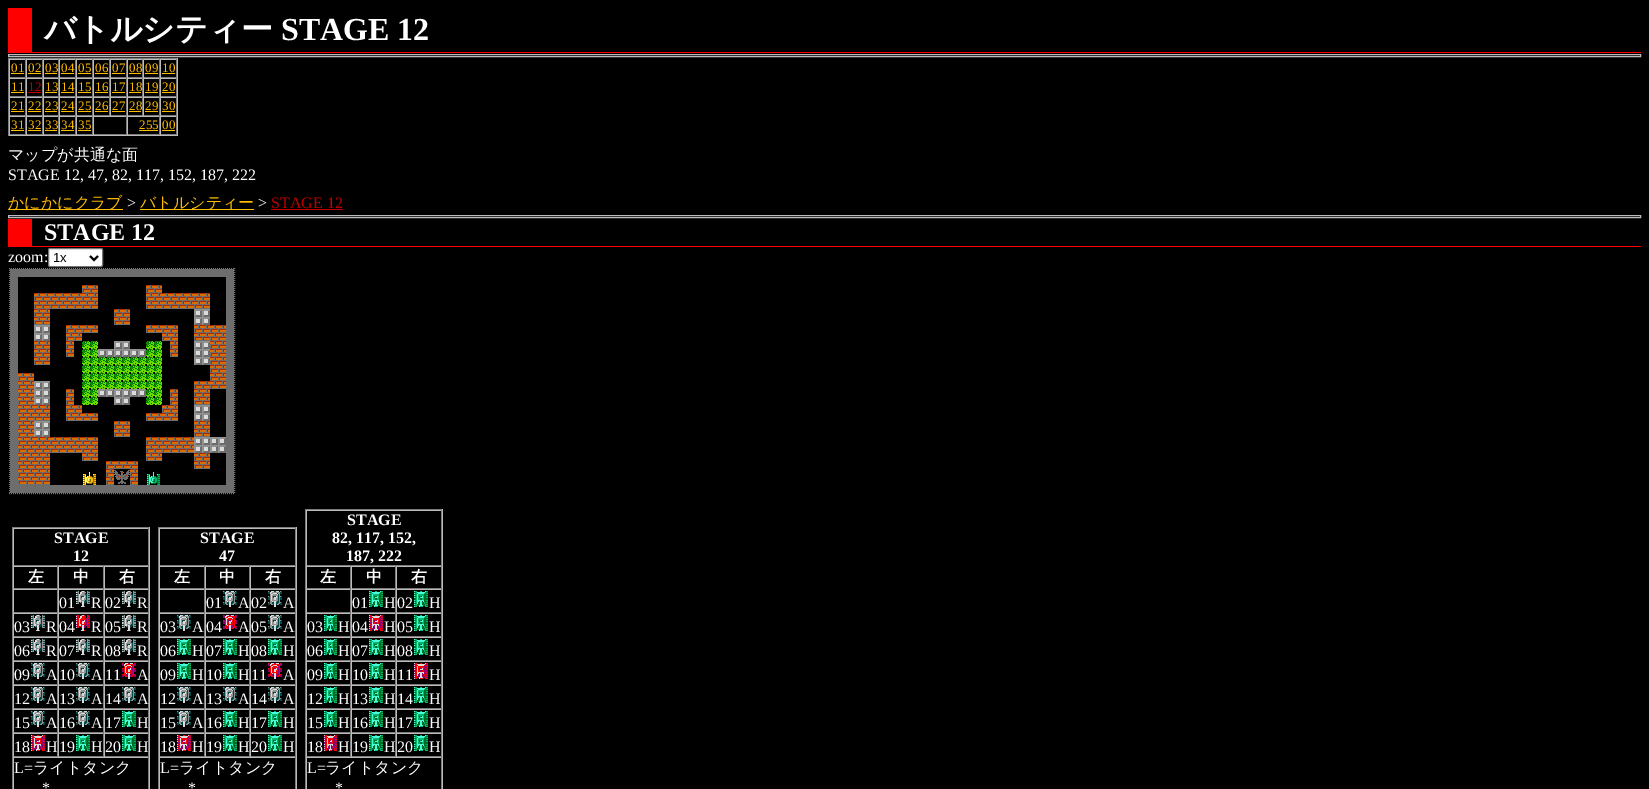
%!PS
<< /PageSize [1649 789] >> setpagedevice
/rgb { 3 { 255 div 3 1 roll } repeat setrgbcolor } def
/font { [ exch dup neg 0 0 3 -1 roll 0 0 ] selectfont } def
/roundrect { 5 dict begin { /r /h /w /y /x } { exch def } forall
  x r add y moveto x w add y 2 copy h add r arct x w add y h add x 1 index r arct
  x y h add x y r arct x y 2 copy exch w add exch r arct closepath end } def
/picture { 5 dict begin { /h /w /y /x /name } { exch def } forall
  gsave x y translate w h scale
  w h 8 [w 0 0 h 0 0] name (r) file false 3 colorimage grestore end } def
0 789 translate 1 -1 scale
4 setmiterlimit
0 0 0 rgb
0 0 1649 789 rectfill
255 0 0 rgb
32 52 1609 1 rectfill
8 8 24 45 rectfill
187 187 187 rgb
8.5 54.5 1632 2 rectstroke
[
  [8 58 170 1 125 125 125]
  [177 58 1 78 187 187 187]
  [8 135 170 1 187 187 187]
  [8 58 1 78 125 125 125]
  [9 59 168 1 187 187 187]
  [25 59 1 19 125 125 125]
  [9 77 17 1 125 125 125]
  [9 59 1 19 187 187 187]
  [11 73 13 1 255 187 0]
  [42 59 1 19 125 125 125]
  [26 77 17 1 125 125 125]
  [26 59 1 19 187 187 187]
  [28 73 13 1 255 187 0]
  [58 59 1 19 125 125 125]
  [43 77 16 1 125 125 125]
  [43 59 1 19 187 187 187]
  [45 73 12 1 255 187 0]
  [75 59 1 19 125 125 125]
  [59 77 17 1 125 125 125]
  [59 59 1 19 187 187 187]
  [61 73 13 1 255 187 0]
  [92 59 1 19 125 125 125]
  [76 77 17 1 125 125 125]
  [76 59 1 19 187 187 187]
  [78 73 13 1 255 187 0]
  [109 59 1 19 125 125 125]
  [93 77 17 1 125 125 125]
  [93 59 1 19 187 187 187]
  [95 73 13 1 255 187 0]
  [126 59 1 19 125 125 125]
  [110 77 17 1 125 125 125]
  [110 59 1 19 187 187 187]
  [112 73 13 1 255 187 0]
  [142 59 1 19 125 125 125]
  [127 77 16 1 125 125 125]
  [127 59 1 19 187 187 187]
  [129 73 12 1 255 187 0]
  [159 59 1 19 125 125 125]
  [143 77 17 1 125 125 125]
  [143 59 1 19 187 187 187]
  [145 73 13 1 255 187 0]
  [176 59 1 19 125 125 125]
  [160 77 17 1 125 125 125]
  [160 59 1 19 187 187 187]
  [162 73 13 1 255 187 0]
  [9 78 168 1 187 187 187]
  [25 78 1 19 125 125 125]
  [9 96 17 1 125 125 125]
  [9 78 1 19 187 187 187]
  [11 92 13 1 255 187 0]
  [42 78 1 19 125 125 125]
  [26 96 17 1 125 125 125]
  [26 78 1 19 187 187 187]
  [28 92 13 1 187 0 0]
  [58 78 1 19 125 125 125]
  [43 96 16 1 125 125 125]
  [43 78 1 19 187 187 187]
  [45 92 12 1 255 187 0]
  [75 78 1 19 125 125 125]
  [59 96 17 1 125 125 125]
  [59 78 1 19 187 187 187]
  [61 92 13 1 255 187 0]
  [92 78 1 19 125 125 125]
  [76 96 17 1 125 125 125]
  [76 78 1 19 187 187 187]
  [78 92 13 1 255 187 0]
  [109 78 1 19 125 125 125]
  [93 96 17 1 125 125 125]
  [93 78 1 19 187 187 187]
  [95 92 13 1 255 187 0]
  [126 78 1 19 125 125 125]
  [110 96 17 1 125 125 125]
  [110 78 1 19 187 187 187]
  [112 92 13 1 255 187 0]
  [142 78 1 19 125 125 125]
  [127 96 16 1 125 125 125]
  [127 78 1 19 187 187 187]
  [129 92 12 1 255 187 0]
  [159 78 1 19 125 125 125]
  [143 96 17 1 125 125 125]
  [143 78 1 19 187 187 187]
  [145 92 13 1 255 187 0]
  [176 78 1 19 125 125 125]
  [160 96 17 1 125 125 125]
  [160 78 1 19 187 187 187]
  [162 92 13 1 255 187 0]
  [9 97 168 1 187 187 187]
  [25 97 1 19 125 125 125]
  [9 115 17 1 125 125 125]
  [9 97 1 19 187 187 187]
  [11 111 13 1 255 187 0]
  [42 97 1 19 125 125 125]
  [26 115 17 1 125 125 125]
  [26 97 1 19 187 187 187]
  [28 111 13 1 255 187 0]
  [58 97 1 19 125 125 125]
  [43 115 16 1 125 125 125]
  [43 97 1 19 187 187 187]
  [45 111 12 1 255 187 0]
  [75 97 1 19 125 125 125]
  [59 115 17 1 125 125 125]
  [59 97 1 19 187 187 187]
  [61 111 13 1 255 187 0]
  [92 97 1 19 125 125 125]
  [76 115 17 1 125 125 125]
  [76 97 1 19 187 187 187]
  [78 111 13 1 255 187 0]
  [109 97 1 19 125 125 125]
  [93 115 17 1 125 125 125]
  [93 97 1 19 187 187 187]
  [95 111 13 1 255 187 0]
  [126 97 1 19 125 125 125]
  [110 115 17 1 125 125 125]
  [110 97 1 19 187 187 187]
  [112 111 13 1 255 187 0]
  [142 97 1 19 125 125 125]
  [127 115 16 1 125 125 125]
  [127 97 1 19 187 187 187]
  [129 111 12 1 255 187 0]
  [159 97 1 19 125 125 125]
  [143 115 17 1 125 125 125]
  [143 97 1 19 187 187 187]
  [145 111 13 1 255 187 0]
  [176 97 1 19 125 125 125]
  [160 115 17 1 125 125 125]
  [160 97 1 19 187 187 187]
  [162 111 13 1 255 187 0]
  [9 116 168 1 187 187 187]
  [25 116 1 19 125 125 125]
  [9 134 17 1 125 125 125]
  [9 116 1 19 187 187 187]
  [11 130 13 1 255 187 0]
  [42 116 1 19 125 125 125]
  [26 134 17 1 125 125 125]
  [26 116 1 19 187 187 187]
  [28 130 13 1 255 187 0]
  [58 116 1 19 125 125 125]
  [43 134 16 1 125 125 125]
  [43 116 1 19 187 187 187]
  [45 130 12 1 255 187 0]
  [75 116 1 19 125 125 125]
  [59 134 17 1 125 125 125]
  [59 116 1 19 187 187 187]
  [61 130 13 1 255 187 0]
  [92 116 1 19 125 125 125]
  [76 134 17 1 125 125 125]
  [76 116 1 19 187 187 187]
  [78 130 13 1 255 187 0]
  [126 116 1 19 125 125 125]
  [93 134 34 1 125 125 125]
  [93 116 1 19 187 187 187]
  [159 116 1 19 125 125 125]
  [127 134 33 1 125 125 125]
  [127 116 1 19 187 187 187]
  [139 130 19 1 255 187 0]
  [176 116 1 19 125 125 125]
  [160 134 17 1 125 125 125]
  [160 116 1 19 187 187 187]
  [162 130 13 1 255 187 0]
  [8 209 115 1 255 187 0]
  [140 209 114 1 255 187 0]
  [271 209 72 1 187 0 0]
] { aload pop rgb rectfill } forall
187 187 187 rgb
8.5 215.5 1632 2 rectstroke
255 0 0 rgb
32 246 1609 1 rectfill
8 219 24 28 rectfill
255 255 255 rgb
48.5 248.5 54 18 1.5 roundrect gsave fill grestore
118 118 118 rgb
stroke
0 0 0 rgb
2 setlinewidth
90 256 moveto 94 260 lineto 98 256 lineto stroke
119 119 119 rgb
1 setlinewidth
[1 1] 0 setdash
9 268.5 moveto 235 268.5 lineto stroke
9.5 268 moveto 9.5 494 lineto stroke
(img/1.rgb) 10 269 224 224 picture
234.5 268 moveto 234.5 494 lineto stroke
9 493.5 moveto 235 493.5 lineto stroke
[
  [12 527 138 1 125 125 125]
  [149 527 1 262 187 187 187]
  [12 527 1 262 125 125 125]
  [13 528 136 1 187 187 187]
  [148 528 1 38 125 125 125]
  [13 565 136 1 125 125 125]
  [13 528 1 38 187 187 187]
  [13 566 136 1 187 187 187]
  [57 566 1 23 125 125 125]
  [13 588 45 1 125 125 125]
  [13 566 1 23 187 187 187]
  [103 566 1 23 125 125 125]
  [58 588 46 1 125 125 125]
  [58 566 1 23 187 187 187]
  [148 566 1 23 125 125 125]
  [104 588 45 1 125 125 125]
  [104 566 1 23 187 187 187]
  [13 589 136 1 187 187 187]
  [57 589 1 24 125 125 125]
  [13 612 45 1 125 125 125]
  [13 589 1 24 187 187 187]
  [103 589 1 24 125 125 125]
  [58 612 46 1 125 125 125]
  [58 589 1 24 187 187 187]
] { aload pop rgb rectfill } forall
(img/2.rgb) 76 591 14 16 picture
[
  [148 589 1 24 125 125 125]
  [104 612 45 1 125 125 125]
  [104 589 1 24 187 187 187]
] { aload pop rgb rectfill } forall
(img/2.rgb) 122 591 14 16 picture
[
  [13 613 136 1 187 187 187]
  [57 613 1 24 125 125 125]
  [13 636 45 1 125 125 125]
  [13 613 1 24 187 187 187]
] { aload pop rgb rectfill } forall
(img/2.rgb) 31 615 14 16 picture
[
  [103 613 1 24 125 125 125]
  [58 636 46 1 125 125 125]
  [58 613 1 24 187 187 187]
] { aload pop rgb rectfill } forall
(img/3.rgb) 76 615 14 16 picture
[
  [148 613 1 24 125 125 125]
  [104 636 45 1 125 125 125]
  [104 613 1 24 187 187 187]
] { aload pop rgb rectfill } forall
(img/2.rgb) 122 615 14 16 picture
[
  [13 637 136 1 187 187 187]
  [57 637 1 24 125 125 125]
  [13 660 45 1 125 125 125]
  [13 637 1 24 187 187 187]
] { aload pop rgb rectfill } forall
(img/2.rgb) 31 639 14 16 picture
[
  [103 637 1 24 125 125 125]
  [58 660 46 1 125 125 125]
  [58 637 1 24 187 187 187]
] { aload pop rgb rectfill } forall
(img/2.rgb) 76 639 14 16 picture
[
  [148 637 1 24 125 125 125]
  [104 660 45 1 125 125 125]
  [104 637 1 24 187 187 187]
] { aload pop rgb rectfill } forall
(img/2.rgb) 122 639 14 16 picture
[
  [13 661 136 1 187 187 187]
  [57 661 1 24 125 125 125]
  [13 684 45 1 125 125 125]
  [13 661 1 24 187 187 187]
] { aload pop rgb rectfill } forall
(img/4.rgb) 31 663 14 16 picture
[
  [103 661 1 24 125 125 125]
  [58 684 46 1 125 125 125]
  [58 661 1 24 187 187 187]
] { aload pop rgb rectfill } forall
(img/4.rgb) 76 663 14 16 picture
[
  [148 661 1 24 125 125 125]
  [104 684 45 1 125 125 125]
  [104 661 1 24 187 187 187]
] { aload pop rgb rectfill } forall
(img/5.rgb) 122 663 14 16 picture
[
  [13 685 136 1 187 187 187]
  [57 685 1 24 125 125 125]
  [13 708 45 1 125 125 125]
  [13 685 1 24 187 187 187]
] { aload pop rgb rectfill } forall
(img/4.rgb) 31 687 14 16 picture
[
  [103 685 1 24 125 125 125]
  [58 708 46 1 125 125 125]
  [58 685 1 24 187 187 187]
] { aload pop rgb rectfill } forall
(img/4.rgb) 76 687 14 16 picture
[
  [148 685 1 24 125 125 125]
  [104 708 45 1 125 125 125]
  [104 685 1 24 187 187 187]
] { aload pop rgb rectfill } forall
(img/4.rgb) 122 687 14 16 picture
[
  [13 709 136 1 187 187 187]
  [57 709 1 24 125 125 125]
  [13 732 45 1 125 125 125]
  [13 709 1 24 187 187 187]
] { aload pop rgb rectfill } forall
(img/4.rgb) 31 711 14 16 picture
[
  [103 709 1 24 125 125 125]
  [58 732 46 1 125 125 125]
  [58 709 1 24 187 187 187]
] { aload pop rgb rectfill } forall
(img/4.rgb) 76 711 14 16 picture
[
  [148 709 1 24 125 125 125]
  [104 732 45 1 125 125 125]
  [104 709 1 24 187 187 187]
] { aload pop rgb rectfill } forall
(img/6.rgb) 122 711 14 16 picture
[
  [13 733 136 1 187 187 187]
  [57 733 1 24 125 125 125]
  [13 756 45 1 125 125 125]
  [13 733 1 24 187 187 187]
] { aload pop rgb rectfill } forall
(img/7.rgb) 31 735 14 16 picture
[
  [103 733 1 24 125 125 125]
  [58 756 46 1 125 125 125]
  [58 733 1 24 187 187 187]
] { aload pop rgb rectfill } forall
(img/6.rgb) 76 735 14 16 picture
[
  [148 733 1 24 125 125 125]
  [104 756 45 1 125 125 125]
  [104 733 1 24 187 187 187]
] { aload pop rgb rectfill } forall
(img/6.rgb) 122 735 14 16 picture
[
  [13 757 136 1 187 187 187]
  [148 757 1 32 125 125 125]
  [13 757 1 32 187 187 187]
  [158 527 139 1 125 125 125]
  [296 527 1 262 187 187 187]
  [158 527 1 262 125 125 125]
  [159 528 137 1 187 187 187]
  [295 528 1 38 125 125 125]
  [159 565 137 1 125 125 125]
  [159 528 1 38 187 187 187]
  [159 566 137 1 187 187 187]
  [204 566 1 23 125 125 125]
  [159 588 46 1 125 125 125]
  [159 566 1 23 187 187 187]
  [249 566 1 23 125 125 125]
  [205 588 45 1 125 125 125]
  [205 566 1 23 187 187 187]
  [295 566 1 23 125 125 125]
  [250 588 46 1 125 125 125]
  [250 566 1 23 187 187 187]
  [159 589 137 1 187 187 187]
  [204 589 1 24 125 125 125]
  [159 612 46 1 125 125 125]
  [159 589 1 24 187 187 187]
  [249 589 1 24 125 125 125]
  [205 612 45 1 125 125 125]
  [205 589 1 24 187 187 187]
] { aload pop rgb rectfill } forall
(img/4.rgb) 223 591 14 16 picture
[
  [295 589 1 24 125 125 125]
  [250 612 46 1 125 125 125]
  [250 589 1 24 187 187 187]
] { aload pop rgb rectfill } forall
(img/4.rgb) 268 591 14 16 picture
[
  [159 613 137 1 187 187 187]
  [204 613 1 24 125 125 125]
  [159 636 46 1 125 125 125]
  [159 613 1 24 187 187 187]
] { aload pop rgb rectfill } forall
(img/4.rgb) 177 615 14 16 picture
[
  [249 613 1 24 125 125 125]
  [205 636 45 1 125 125 125]
  [205 613 1 24 187 187 187]
] { aload pop rgb rectfill } forall
(img/5.rgb) 223 615 14 16 picture
[
  [295 613 1 24 125 125 125]
  [250 636 46 1 125 125 125]
  [250 613 1 24 187 187 187]
] { aload pop rgb rectfill } forall
(img/4.rgb) 268 615 14 16 picture
[
  [159 637 137 1 187 187 187]
  [204 637 1 24 125 125 125]
  [159 660 46 1 125 125 125]
  [159 637 1 24 187 187 187]
] { aload pop rgb rectfill } forall
(img/6.rgb) 177 639 14 16 picture
[
  [249 637 1 24 125 125 125]
  [205 660 45 1 125 125 125]
  [205 637 1 24 187 187 187]
] { aload pop rgb rectfill } forall
(img/6.rgb) 223 639 14 16 picture
[
  [295 637 1 24 125 125 125]
  [250 660 46 1 125 125 125]
  [250 637 1 24 187 187 187]
] { aload pop rgb rectfill } forall
(img/6.rgb) 268 639 14 16 picture
[
  [159 661 137 1 187 187 187]
  [204 661 1 24 125 125 125]
  [159 684 46 1 125 125 125]
  [159 661 1 24 187 187 187]
] { aload pop rgb rectfill } forall
(img/6.rgb) 177 663 14 16 picture
[
  [249 661 1 24 125 125 125]
  [205 684 45 1 125 125 125]
  [205 661 1 24 187 187 187]
] { aload pop rgb rectfill } forall
(img/6.rgb) 223 663 14 16 picture
[
  [295 661 1 24 125 125 125]
  [250 684 46 1 125 125 125]
  [250 661 1 24 187 187 187]
] { aload pop rgb rectfill } forall
(img/5.rgb) 268 663 14 16 picture
[
  [159 685 137 1 187 187 187]
  [204 685 1 24 125 125 125]
  [159 708 46 1 125 125 125]
  [159 685 1 24 187 187 187]
] { aload pop rgb rectfill } forall
(img/4.rgb) 177 687 14 16 picture
[
  [249 685 1 24 125 125 125]
  [205 708 45 1 125 125 125]
  [205 685 1 24 187 187 187]
] { aload pop rgb rectfill } forall
(img/4.rgb) 223 687 14 16 picture
[
  [295 685 1 24 125 125 125]
  [250 708 46 1 125 125 125]
  [250 685 1 24 187 187 187]
] { aload pop rgb rectfill } forall
(img/4.rgb) 268 687 14 16 picture
[
  [159 709 137 1 187 187 187]
  [204 709 1 24 125 125 125]
  [159 732 46 1 125 125 125]
  [159 709 1 24 187 187 187]
] { aload pop rgb rectfill } forall
(img/4.rgb) 177 711 14 16 picture
[
  [249 709 1 24 125 125 125]
  [205 732 45 1 125 125 125]
  [205 709 1 24 187 187 187]
] { aload pop rgb rectfill } forall
(img/6.rgb) 223 711 14 16 picture
[
  [295 709 1 24 125 125 125]
  [250 732 46 1 125 125 125]
  [250 709 1 24 187 187 187]
] { aload pop rgb rectfill } forall
(img/6.rgb) 268 711 14 16 picture
[
  [159 733 137 1 187 187 187]
  [204 733 1 24 125 125 125]
  [159 756 46 1 125 125 125]
  [159 733 1 24 187 187 187]
] { aload pop rgb rectfill } forall
(img/7.rgb) 177 735 14 16 picture
[
  [249 733 1 24 125 125 125]
  [205 756 45 1 125 125 125]
  [205 733 1 24 187 187 187]
] { aload pop rgb rectfill } forall
(img/6.rgb) 223 735 14 16 picture
[
  [295 733 1 24 125 125 125]
  [250 756 46 1 125 125 125]
  [250 733 1 24 187 187 187]
] { aload pop rgb rectfill } forall
(img/6.rgb) 268 735 14 16 picture
[
  [159 757 137 1 187 187 187]
  [295 757 1 32 125 125 125]
  [159 757 1 32 187 187 187]
  [305 509 138 1 125 125 125]
  [442 509 1 280 187 187 187]
  [305 509 1 280 125 125 125]
  [306 510 136 1 187 187 187]
  [441 510 1 56 125 125 125]
  [306 565 136 1 125 125 125]
  [306 510 1 56 187 187 187]
  [306 566 136 1 187 187 187]
  [350 566 1 23 125 125 125]
  [306 588 45 1 125 125 125]
  [306 566 1 23 187 187 187]
  [395 566 1 23 125 125 125]
  [351 588 45 1 125 125 125]
  [351 566 1 23 187 187 187]
  [441 566 1 23 125 125 125]
  [396 588 46 1 125 125 125]
  [396 566 1 23 187 187 187]
  [306 589 136 1 187 187 187]
  [350 589 1 24 125 125 125]
  [306 612 45 1 125 125 125]
  [306 589 1 24 187 187 187]
  [395 589 1 24 125 125 125]
  [351 612 45 1 125 125 125]
  [351 589 1 24 187 187 187]
] { aload pop rgb rectfill } forall
(img/6.rgb) 369 591 14 16 picture
[
  [441 589 1 24 125 125 125]
  [396 612 46 1 125 125 125]
  [396 589 1 24 187 187 187]
] { aload pop rgb rectfill } forall
(img/6.rgb) 414 591 14 16 picture
[
  [306 613 136 1 187 187 187]
  [350 613 1 24 125 125 125]
  [306 636 45 1 125 125 125]
  [306 613 1 24 187 187 187]
] { aload pop rgb rectfill } forall
(img/8.rgb) 324 615 13 16 picture
[
  [395 613 1 24 125 125 125]
  [351 636 45 1 125 125 125]
  [351 613 1 24 187 187 187]
] { aload pop rgb rectfill } forall
(img/7.rgb) 369 615 14 16 picture
[
  [441 613 1 24 125 125 125]
  [396 636 46 1 125 125 125]
  [396 613 1 24 187 187 187]
] { aload pop rgb rectfill } forall
(img/6.rgb) 414 615 14 16 picture
[
  [306 637 136 1 187 187 187]
  [350 637 1 24 125 125 125]
  [306 660 45 1 125 125 125]
  [306 637 1 24 187 187 187]
] { aload pop rgb rectfill } forall
(img/8.rgb) 324 639 13 16 picture
[
  [395 637 1 24 125 125 125]
  [351 660 45 1 125 125 125]
  [351 637 1 24 187 187 187]
] { aload pop rgb rectfill } forall
(img/6.rgb) 369 639 14 16 picture
[
  [441 637 1 24 125 125 125]
  [396 660 46 1 125 125 125]
  [396 637 1 24 187 187 187]
] { aload pop rgb rectfill } forall
(img/6.rgb) 414 639 14 16 picture
[
  [306 661 136 1 187 187 187]
  [350 661 1 24 125 125 125]
  [306 684 45 1 125 125 125]
  [306 661 1 24 187 187 187]
] { aload pop rgb rectfill } forall
(img/8.rgb) 324 663 13 16 picture
[
  [395 661 1 24 125 125 125]
  [351 684 45 1 125 125 125]
  [351 661 1 24 187 187 187]
] { aload pop rgb rectfill } forall
(img/6.rgb) 369 663 14 16 picture
[
  [441 661 1 24 125 125 125]
  [396 684 46 1 125 125 125]
  [396 661 1 24 187 187 187]
] { aload pop rgb rectfill } forall
(img/7.rgb) 414 663 14 16 picture
[
  [306 685 136 1 187 187 187]
  [350 685 1 24 125 125 125]
  [306 708 45 1 125 125 125]
  [306 685 1 24 187 187 187]
] { aload pop rgb rectfill } forall
(img/8.rgb) 324 687 13 16 picture
[
  [395 685 1 24 125 125 125]
  [351 708 45 1 125 125 125]
  [351 685 1 24 187 187 187]
] { aload pop rgb rectfill } forall
(img/6.rgb) 369 687 14 16 picture
[
  [441 685 1 24 125 125 125]
  [396 708 46 1 125 125 125]
  [396 685 1 24 187 187 187]
] { aload pop rgb rectfill } forall
(img/6.rgb) 414 687 14 16 picture
[
  [306 709 136 1 187 187 187]
  [350 709 1 24 125 125 125]
  [306 732 45 1 125 125 125]
  [306 709 1 24 187 187 187]
] { aload pop rgb rectfill } forall
(img/8.rgb) 324 711 13 16 picture
[
  [395 709 1 24 125 125 125]
  [351 732 45 1 125 125 125]
  [351 709 1 24 187 187 187]
] { aload pop rgb rectfill } forall
(img/6.rgb) 369 711 14 16 picture
[
  [441 709 1 24 125 125 125]
  [396 732 46 1 125 125 125]
  [396 709 1 24 187 187 187]
] { aload pop rgb rectfill } forall
(img/6.rgb) 414 711 14 16 picture
[
  [306 733 136 1 187 187 187]
  [350 733 1 24 125 125 125]
  [306 756 45 1 125 125 125]
  [306 733 1 24 187 187 187]
] { aload pop rgb rectfill } forall
(img/9.rgb) 324 735 13 16 picture
[
  [395 733 1 24 125 125 125]
  [351 756 45 1 125 125 125]
  [351 733 1 24 187 187 187]
] { aload pop rgb rectfill } forall
(img/6.rgb) 369 735 14 16 picture
[
  [441 733 1 24 125 125 125]
  [396 756 46 1 125 125 125]
  [396 733 1 24 187 187 187]
] { aload pop rgb rectfill } forall
(img/6.rgb) 414 735 14 16 picture
[
  [306 757 136 1 187 187 187]
  [441 757 1 32 125 125 125]
  [306 757 1 32 187 187 187]
] { aload pop rgb rectfill } forall
/WenQuanYiZenHei-Bold 32 font
255 255 255 rgb
44 40 moveto (バトルシティー) show
/LiberationSerif-Bold 32 font
281 40 moveto (STAGE 12) show
/LiberationSerif-Regular 13 font
255 187 0 rgb
[
  [(01) 11 72]
  [(02) 28 72]
  [(03) 45 72]
  [(04) 61 72]
  [(05) 78 72]
  [(06) 95 72]
  [(07) 112 72]
  [(08) 129 72]
  [(09) 145 72]
  [(10) 162 72]
  [(11) 11 91]
] { aload pop moveto show } forall
187 0 0 rgb
28 91 moveto (12) show
255 187 0 rgb
[
  [(13) 45 91]
  [(14) 61 91]
  [(15) 78 91]
  [(16) 95 91]
  [(17) 112 91]
  [(18) 129 91]
  [(19) 145 91]
  [(20) 162 91]
  [(21) 11 110]
  [(22) 28 110]
  [(23) 45 110]
  [(24) 61 110]
  [(25) 78 110]
  [(26) 95 110]
  [(27) 112 110]
  [(28) 129 110]
  [(29) 145 110]
  [(30) 162 110]
  [(31) 11 129]
  [(32) 28 129]
  [(33) 45 129]
  [(34) 61 129]
  [(35) 78 129]
  [(255) 139 129]
  [(00) 162 129]
] { aload pop moveto show } forall
/WenQuanYiZenHei-Medium 16 font
255 255 255 rgb
8 160 moveto (マップが共通な面) show
/LiberationSerif-Regular 16 font
8 180 moveto (STAGE 12, 47, 82, 117, 152, 187, 222) show
/WenQuanYiZenHei-Medium 16 font
255 187 0 rgb
8 208 moveto (かにかにクラブ) show
/LiberationSerif-Regular 16 font
255 255 255 rgb
127 208 moveto (>) show
/WenQuanYiZenHei-Medium 16 font
255 187 0 rgb
140 208 moveto (バトルシティー) show
/LiberationSerif-Regular 16 font
255 255 255 rgb
258 208 moveto (>) show
187 0 0 rgb
271 208 moveto (STAGE 12) show
/LiberationSerif-Bold 24 font
255 255 255 rgb
44 240 moveto (STAGE 12) show
/LiberationSerif-Regular 16 font
8 262 moveto (zoom:) show
/LiberationSans-Regular 13 font
0 0 0 rgb
53 262 moveto (1x) show
/LiberationSerif-Bold 16 font
255 255 255 rgb
54 543 moveto (STAGE) show
73 561 moveto (12) show
/WenQuanYiZenHei-Bold 16 font
[
  [(左) 28 582]
  [(中) 73 582]
  [(右) 119 582]
] { aload pop moveto show } forall
/LiberationSerif-Regular 16 font
[
  [(01) 59 608]
  [(R) 91 608]
  [(02) 105 608]
  [(R) 137 608]
  [(03) 14 632]
  [(R) 46 632]
  [(04) 59 632]
  [(R) 91 632]
] { aload pop moveto show } forall
0 0 0 rgb
75 628 1 2 rectfill
255 255 255 rgb
[
  [(05) 105 632]
  [(R) 137 632]
  [(06) 14 656]
  [(R) 46 656]
  [(07) 59 656]
  [(R) 91 656]
  [(08) 105 656]
  [(R) 137 656]
  [(09) 14 680]
  [(A) 46 680]
  [(10) 59 680]
  [(A) 91 680]
  [(11) 105 680]
  [(A) 137 680]
  [(12) 14 704]
  [(A) 46 704]
  [(13) 59 704]
  [(A) 91 704]
  [(14) 105 704]
  [(A) 137 704]
  [(15) 14 728]
  [(A) 46 728]
  [(16) 59 728]
  [(A) 91 728]
  [(17) 105 728]
  [(H) 137 728]
  [(18) 14 752]
  [(H) 46 752]
  [(19) 59 752]
  [(H) 91 752]
  [(20) 105 752]
  [(H) 137 752]
  [(L=) 14 773]
] { aload pop moveto show } forall
/WenQuanYiZenHei-Medium 16 font
33 773 moveto (ライトタンク) show
/LiberationSerif-Regular 16 font
42 793 moveto (*) show
/LiberationSerif-Bold 16 font
200 543 moveto (STAGE) show
219 561 moveto (47) show
/WenQuanYiZenHei-Bold 16 font
[
  [(左) 174 582]
  [(中) 219 582]
  [(右) 265 582]
] { aload pop moveto show } forall
/LiberationSerif-Regular 16 font
[
  [(01) 206 608]
  [(A) 238 608]
  [(02) 251 608]
  [(A) 283 608]
  [(03) 160 632]
  [(A) 192 632]
  [(04) 206 632]
  [(A) 238 632]
  [(05) 251 632]
  [(A) 283 632]
  [(06) 160 656]
  [(H) 192 656]
  [(07) 206 656]
  [(H) 238 656]
  [(08) 251 656]
  [(H) 283 656]
  [(09) 160 680]
  [(H) 192 680]
  [(10) 206 680]
  [(H) 238 680]
  [(11) 251 680]
  [(A) 283 680]
  [(12) 160 704]
  [(A) 192 704]
  [(13) 206 704]
  [(A) 238 704]
  [(14) 251 704]
  [(A) 283 704]
  [(15) 160 728]
  [(A) 192 728]
  [(16) 206 728]
  [(H) 238 728]
  [(17) 251 728]
  [(H) 283 728]
  [(18) 160 752]
  [(H) 192 752]
  [(19) 206 752]
  [(H) 238 752]
  [(20) 251 752]
  [(H) 283 752]
  [(L=) 160 773]
] { aload pop moveto show } forall
/WenQuanYiZenHei-Medium 16 font
179 773 moveto (ライトタンク) show
/LiberationSerif-Regular 16 font
188 793 moveto (*) show
/LiberationSerif-Bold 16 font
[
  [(STAGE) 347 525]
  [(82, 117, 152,) 332 543]
  [(187, 222) 346 561]
] { aload pop moveto show } forall
/WenQuanYiZenHei-Bold 16 font
[
  [(左) 320 582]
  [(中) 366 582]
  [(右) 411 582]
] { aload pop moveto show } forall
/LiberationSerif-Regular 16 font
[
  [(01) 352 608]
  [(H) 384 608]
  [(02) 397 608]
  [(H) 429 608]
  [(03) 307 632]
  [(H) 338 632]
  [(04) 352 632]
  [(H) 384 632]
  [(05) 397 632]
  [(H) 429 632]
  [(06) 307 656]
  [(H) 338 656]
  [(07) 352 656]
  [(H) 384 656]
  [(08) 397 656]
  [(H) 429 656]
  [(09) 307 680]
  [(H) 338 680]
  [(10) 352 680]
  [(H) 384 680]
  [(11) 397 680]
  [(H) 429 680]
  [(12) 307 704]
  [(H) 338 704]
  [(13) 352 704]
  [(H) 384 704]
  [(14) 397 704]
  [(H) 429 704]
] { aload pop moveto show } forall
0 0 0 rgb
413 700 1 2 rectfill
255 255 255 rgb
[
  [(15) 307 728]
  [(H) 338 728]
  [(16) 352 728]
  [(H) 384 728]
  [(17) 397 728]
  [(H) 429 728]
  [(18) 307 752]
  [(H) 338 752]
  [(19) 352 752]
  [(H) 384 752]
  [(20) 397 752]
  [(H) 429 752]
  [(L=) 307 773]
] { aload pop moveto show } forall
/WenQuanYiZenHei-Medium 16 font
325 773 moveto (ライトタンク) show
/LiberationSerif-Regular 16 font
335 793 moveto (*) show
showpage
